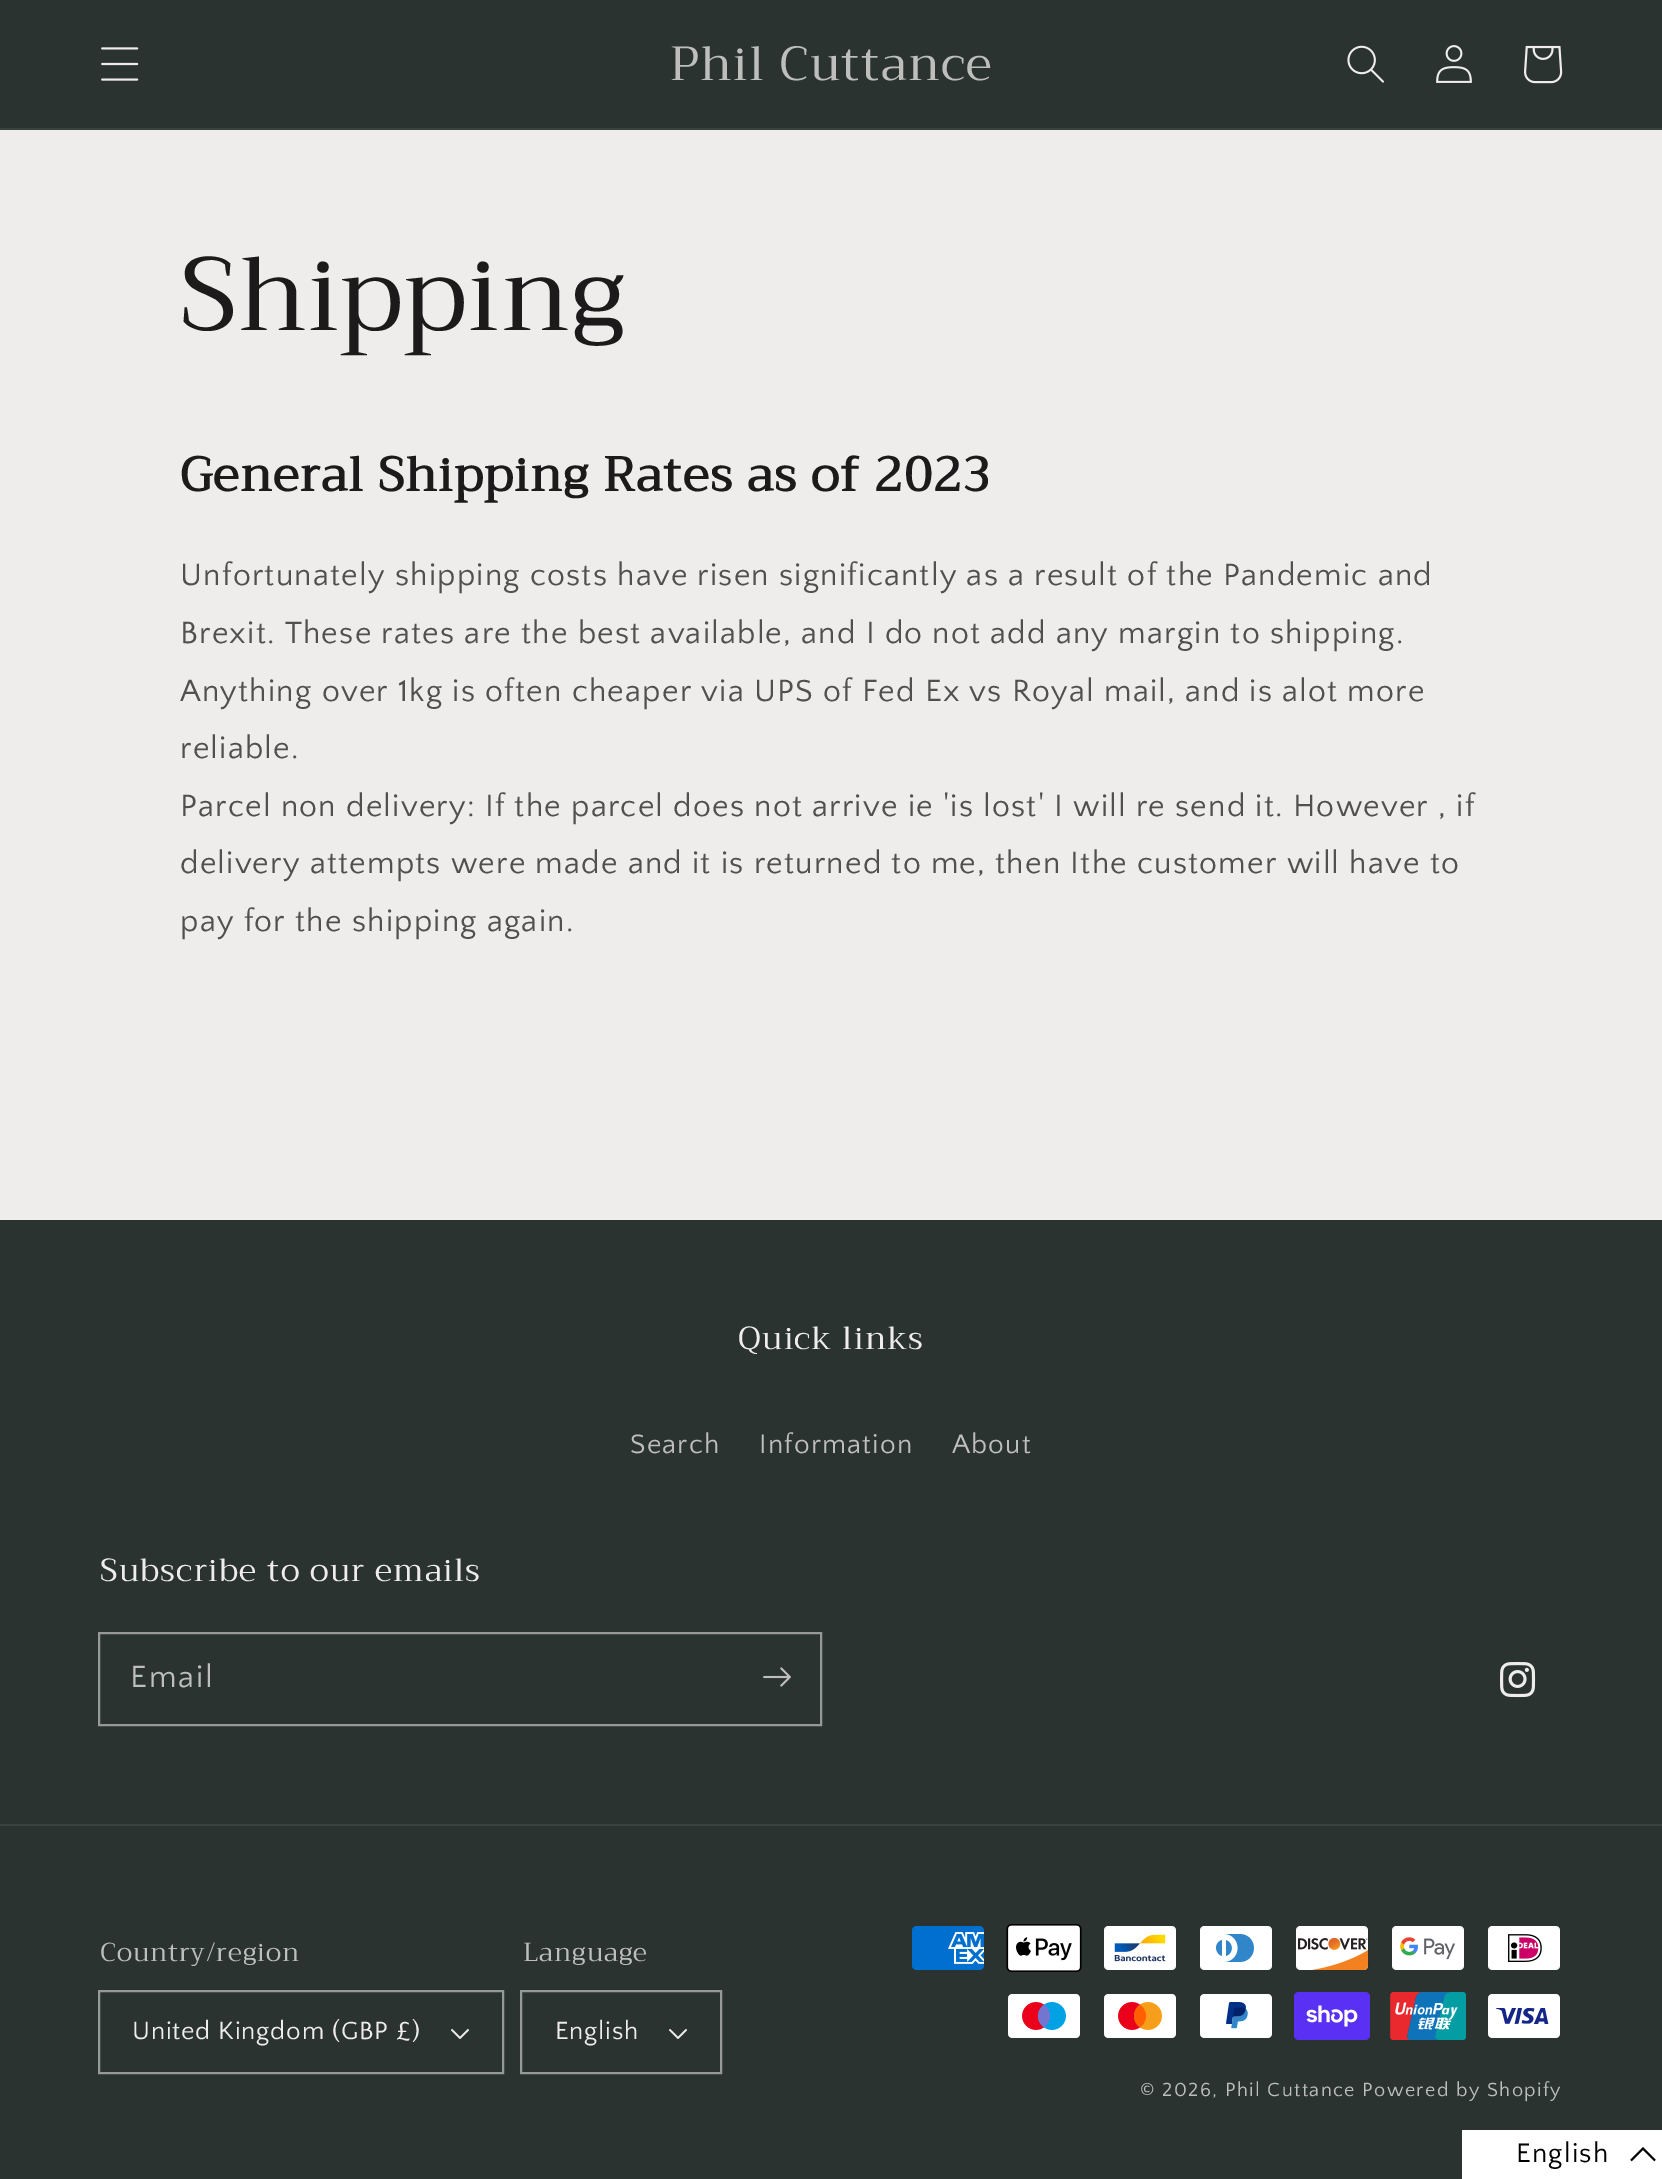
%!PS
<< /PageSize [1662 2179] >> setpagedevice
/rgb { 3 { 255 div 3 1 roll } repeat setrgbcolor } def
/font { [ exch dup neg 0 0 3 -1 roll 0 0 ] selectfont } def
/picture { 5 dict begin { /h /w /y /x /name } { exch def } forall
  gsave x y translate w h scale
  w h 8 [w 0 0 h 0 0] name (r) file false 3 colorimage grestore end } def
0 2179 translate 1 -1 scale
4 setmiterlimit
239 236 236 rgb
0 0 1662 2179 rectfill
42 51 47 rgb
0 0 1662 128 rectfill
58 66 62 rgb
0 128 1662 2 rectfill
(img/1.rgb) 101 47 38 34 picture
(img/2.rgb) 1347 45 37 38 picture
(img/3.rgb) 1436 45 36 38 picture
(img/4.rgb) 1524 45 39 39 picture
42 51 47 rgb
0 1220 1662 959 rectfill
150 153 151 rgb
2 setlinewidth
99 1633 722 92 rectstroke
(img/5.rgb) 763 1667 28 20 picture
(img/6.rgb) 1500 1662 36 36 picture
58 66 62 rgb
0 1824 1662 2 rectfill
150 153 151 rgb
99 1991 404 82 rectstroke
(img/7.rgb) 451 2029 18 10 picture
521 1991 200 82 rectstroke
(img/7.rgb) 669 2029 18 10 picture
(img/8.rgb) 912 1926 72 44 picture
(img/9.rgb) 1006 1924 76 48 picture
(img/10.rgb) 1104 1926 72 44 picture
(img/11.rgb) 1200 1926 72 44 picture
(img/12.rgb) 1296 1926 73 44 picture
(img/13.rgb) 1392 1926 72 44 picture
(img/14.rgb) 1488 1926 72 44 picture
(img/15.rgb) 1008 1994 72 44 picture
(img/16.rgb) 1104 1994 72 44 picture
(img/17.rgb) 1200 1994 72 44 picture
(img/18.rgb) 1294 1992 76 48 picture
(img/19.rgb) 1390 1992 76 48 picture
(img/20.rgb) 1488 1994 72 44 picture
255 255 255 rgb
1462 2130 200 49 rectfill
0 0 0 rgb
1655 2160.5 moveto 1643 2148.5 lineto 1631 2160.5 lineto stroke
/Trirong-Regular 48 font
190 190 189 rgb
670 80 moveto 1.2 0 (Phil Cuttance) ashow
/Trirong-Regular 104 font
28 26 26 rgb
180 330 moveto 1.2 0 (Shipping) ashow
/Trirong-Bold 48 font
180 491 moveto 1.2 0 (General Shipping Rates as of 2023) ashow
/QuattrocentoSans-Regular 32 font
81 79 79 rgb
180 585 moveto 1.2 0 (Unfortunately shipping costs have risen significantly as a result of the Pandemic and) ashow
180 643 moveto 1.2 0 (Brexit. These rates are the best available, and I do not add any margin to shipping.) ashow
180 701 moveto 1.2 0 (Anything over 1kg is often cheaper via UPS of Fed Ex vs Royal mail, and is alot more) ashow
180 758 moveto 1.2 0 (reliable.) ashow
180 816 moveto 1.2 0 (Parcel non delivery: If the parcel does not arrive ie 'is lost' I will re send it. However , if) ashow
180 873 moveto 1.2 0 (delivery attempts were made and it is returned to me, then Ithe customer will have to) ashow
180 931 moveto 1.2 0 (pay for the shipping again.) ashow
/Trirong-Regular 32 font
239 236 236 rgb
738 1349 moveto 1.2 0 (Quick links) ashow
/QuattrocentoSans-Regular 28 font
190 190 189 rgb
630 1453 moveto 1.2 0 (Search) ashow
759 1453 moveto 1.2 0 (Information) ashow
952 1453 moveto 1.2 0 (About) ashow
/Trirong-Regular 32 font
239 236 236 rgb
100 1581 moveto 1.2 0 (Subscribe to our emails) ashow
/QuattrocentoSans-Regular 32 font
190 190 189 rgb
130 1687 moveto 2 0 (Email) ashow
/Trirong-Regular 26 font
100 1961 moveto 0.8 0 (Country/region) ashow
/QuattrocentoSans-Regular 26 font
239 236 236 rgb
132 2039 moveto 0.8 0 (United Kingdom \(GBP £\)) ashow
/Trirong-Regular 26 font
190 190 189 rgb
523 1961 moveto 0.8 0 (Language) ashow
/QuattrocentoSans-Regular 26 font
239 236 236 rgb
555 2039 moveto 0.8 0 (English) ashow
/QuattrocentoSans-Regular 20 font
190 190 189 rgb
1140 2096 moveto 1.4 0 (© 2026, Phil Cuttance Powered by Shopify) ashow
/QuattrocentoSans-Regular 28 font
0 0 0 rgb
1516 2162 moveto 1.2 0 (English) ashow
showpage
